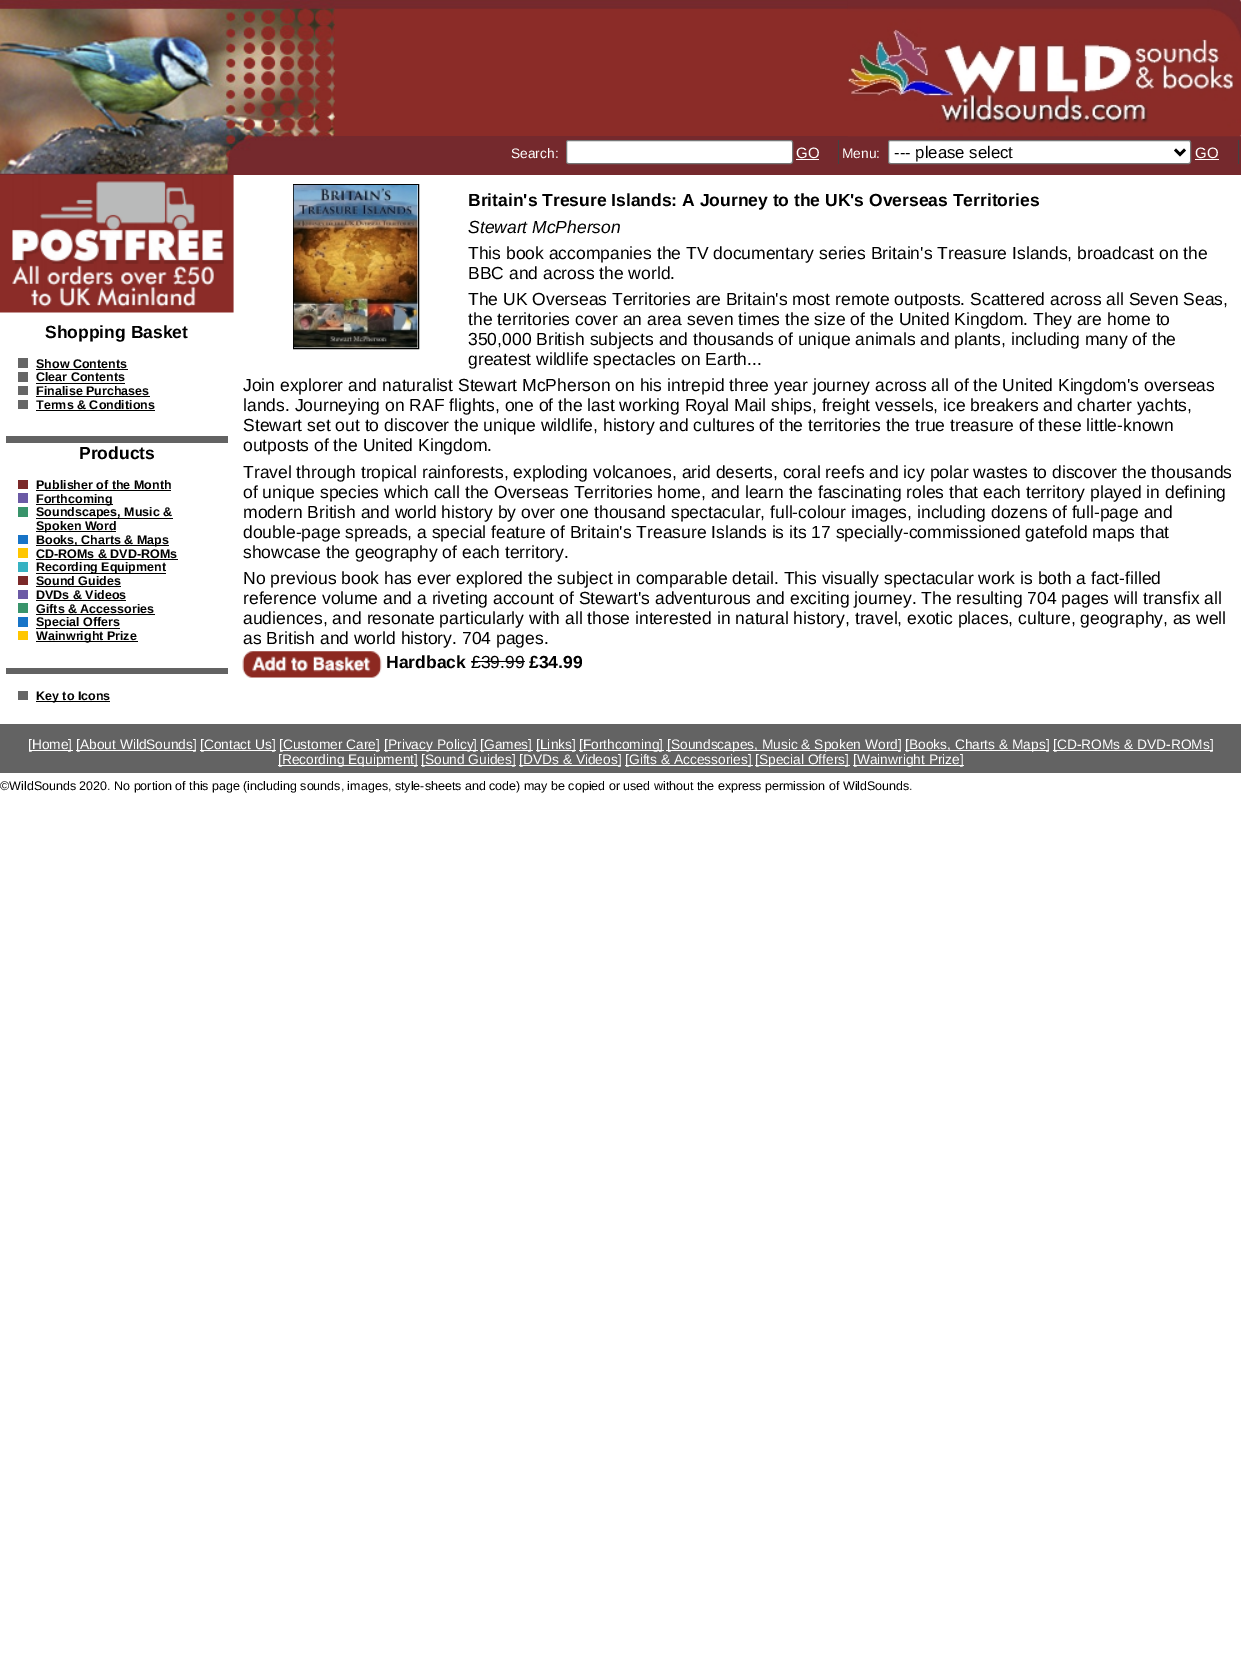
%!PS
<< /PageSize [1241 1680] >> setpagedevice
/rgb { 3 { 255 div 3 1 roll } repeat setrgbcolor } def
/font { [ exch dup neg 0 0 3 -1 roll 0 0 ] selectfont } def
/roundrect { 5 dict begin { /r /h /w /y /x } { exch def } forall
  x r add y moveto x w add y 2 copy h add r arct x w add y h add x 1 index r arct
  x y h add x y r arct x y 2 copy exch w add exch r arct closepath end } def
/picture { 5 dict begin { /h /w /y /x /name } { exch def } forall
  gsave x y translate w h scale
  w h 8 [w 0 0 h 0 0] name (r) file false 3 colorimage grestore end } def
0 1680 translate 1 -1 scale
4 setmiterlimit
255 255 255 rgb
0 0 1241 1680 rectfill
139 44 40 rgb
335 9 513 127 rectfill
(img/1.rgb) 335 0 513 9 picture
117 41 45 rgb
0 173 335 2 rectfill
(img/2.rgb) 0 0 335 174 picture
335 136 906 39 rectfill
(img/3.rgb) 847 0 394 137 picture
66 66 66 rgb
838 140 1 24 rectfill
255 255 255 rgb
566.5 140.5 226 23 2 roundrect gsave fill grestore
118 118 118 rgb
stroke
255 255 255 rgb
796 159 23 1 rectfill
66 66 66 rgb
1238 140 1 24 rectfill
255 255 255 rgb
888.5 140.5 302 23 2 roundrect gsave fill grestore
118 118 118 rgb
stroke
0 0 0 rgb
2.5 setlinewidth
1175 149.5 moveto 1180 154.5 lineto 1185 149.5 lineto stroke
255 255 255 rgb
1195 159 24 1 rectfill
(img/4.rgb) 0 175 234 138 picture
[
  [18 358 10 10 102 102 102]
  [36 369 92 1 0 0 0]
  [18 372 10 10 102 102 102]
  [36 383 89 1 0 0 0]
  [18 386 10 9 102 102 102]
  [36 396 114 1 0 0 0]
  [18 400 10 9 102 102 102]
  [36 410 119 1 0 0 0]
  [6 436 222 7 99 99 99]
  [18 480 10 9 123 41 41]
  [36 490 135 1 0 0 0]
  [18 493 10 10 107 90 165]
  [36 504 77 1 0 0 0]
  [18 507 10 10 57 148 107]
  [36 518 137 1 0 0 0]
  [36 531 80 1 0 0 0]
  [18 535 10 9 24 116 199]
  [36 545 133 1 0 0 0]
  [18 548 10 10 255 198 0]
  [36 559 142 1 0 0 0]
  [18 562 10 10 55 178 194]
  [36 573 130 1 0 0 0]
  [18 576 10 9 123 41 41]
  [36 586 85 1 0 0 0]
  [18 590 10 9 107 90 165]
  [36 600 90 1 0 0 0]
  [18 603 10 10 57 148 107]
  [36 614 119 1 0 0 0]
  [18 617 10 10 24 116 199]
  [36 628 84 1 0 0 0]
  [18 631 10 9 255 198 0]
  [36 641 102 1 0 0 0]
  [6 668 222 6 99 99 99]
  [18 691 10 9 102 102 102]
  [36 701 74 1 0 0 0]
] { aload pop rgb rectfill } forall
1 setlinewidth
293.5 184.5 125 164 rectstroke
(img/5.rgb) 293 185 125 163 picture
(img/6.rgb) 242 651 140 27 picture
[
  [471 661 54 1 0 0 0]
  [0 724 1241 49 99 99 99]
  [29 750 44 1 255 255 255]
  [76 750 120 1 255 255 255]
  [200 750 76 1 255 255 255]
  [280 750 100 1 255 255 255]
  [384 750 94 1 255 255 255]
  [480 750 53 1 255 255 255]
  [536 750 40 1 255 255 255]
  [579 750 85 1 255 255 255]
  [666 750 235 1 255 255 255]
  [905 750 144 1 255 255 255]
  [1053 750 160 1 255 255 255]
  [278 765 140 1 255 255 255]
  [421 765 95 1 255 255 255]
  [519 765 102 1 255 255 255]
  [625 765 128 1 255 255 255]
  [755 765 95 1 255 255 255]
  [853 765 111 1 255 255 255]
] { aload pop rgb rectfill } forall
/LiberationSans-Regular 13.75 font
511 158 moveto (Search:) show
/LiberationSans-Regular 15 font
796 158 moveto (GO) show
/LiberationSans-Regular 13.75 font
842 158 moveto (Menu:) show
/LiberationSans-Regular 16.75 font
0 0 0 rgb
894 158 moveto (--- please select) show
/LiberationSans-Regular 15 font
255 255 255 rgb
1195 158 moveto (GO) show
/LiberationSans-Bold 17.5 font
0 0 0 rgb
45 338 moveto (Shopping Basket) show
/LiberationSans-Bold 12.5 font
[
  [(Show Contents) 36 368]
  [(Clear Contents) 36 381]
  [(Finalise Purchases) 36 395]
  [(Terms & Conditions) 36 409]
] { aload pop moveto show } forall
/LiberationSans-Bold 17.5 font
79 459 moveto (Products) show
/LiberationSans-Bold 12.5 font
[
  [(Publisher of the Month) 36 489]
  [(Forthcoming) 36 503]
  [(Soundscapes, Music &) 36 516]
  [(Spoken Word) 36 530]
  [(Books, Charts & Maps) 36 544]
  [(CD-ROMs & DVD-ROMs) 36 558]
  [(Recording Equipment) 36 571]
  [(Sound Guides) 36 585]
  [(DVDs & Videos) 36 599]
  [(Gifts & Accessories) 36 613]
  [(Special Offers) 36 626]
  [(Wainwright Prize) 36 640]
  [(Key to Icons) 36 700]
] { aload pop moveto show } forall
/LiberationSans-Bold 17.5 font
468 206 moveto (Britain's Tresure Islands: A Journey to the UK's Overseas Territories) show
/LiberationSans-Italic 17.5 font
468 233 moveto (Stewart McPherson) show
/LiberationSans-Regular 17.5 font
[
  [(This book accompanies the TV documentary series Britain's Treasure Islands, broadcast on the) 468 259]
  [(BBC and across the world.) 468 279]
  [(The UK Overseas Territories are Britain's most remote outposts. Scattered across all Seven Seas,) 468 305]
  [(the territories cover an area seven times the size of the United Kingdom. They are home to) 468 325]
  [(350,000 British subjects and thousands of unique animals and plants, including many of the) 468 345]
  [(greatest wildlife spectacles on Earth...) 468 365]
  [(Join explorer and naturalist Stewart McPherson on his intrepid three year journey across all of the United Kingdom's overseas) 243 391]
  [(lands. Journeying on RAF flights, one of the last working Royal Mail ships, freight vessels, ice breakers and charter yachts,) 243 411]
  [(Stewart set out to discover the unique wildlife, history and cultures of the territories the true treasure of these little-known) 243 431]
  [(outposts of the United Kingdom.) 243 451]
  [(Travel through tropical rainforests, exploding volcanoes, arid deserts, coral reefs and icy polar wastes to discover the thousands) 243 478]
  [(of unique species which call the Overseas Territories home, and learn the fascinating roles that each territory played in defining) 243 498]
  [(modern British and world history by over one thousand spectacular, full-colour images, including dozens of full-page and) 243 518]
  [(double-page spreads, a special feature of Britain's Treasure Islands is its 17 specially-commissioned gatefold maps that) 243 538]
  [(showcase the geography of each territory.) 243 558]
  [(No previous book has ever explored the subject in comparable detail. This visually spectacular work is both a fact-filled) 243 584]
  [(reference volume and a riveting account of Stewart's adventurous and exciting journey. The resulting 704 pages will transfix all) 243 604]
  [(audiences, and resonate particularly with all those interested in natural history, travel, exotic places, culture, geography, as well) 243 624]
  [(as British and world history. 704 pages.) 243 644]
] { aload pop moveto show } forall
/LiberationSans-Bold 17.5 font
386 668 moveto (Hardback) show
/LiberationSans-Regular 17.5 font
471 668 moveto (£39.99) show
/LiberationSans-Bold 17.5 font
529 668 moveto (£34.99) show
/LiberationSans-Regular 13.75 font
255 255 255 rgb
[
  [([Home]) 28 749]
  [([About WildSounds]) 76 749]
  [([Contact Us]) 200 749]
  [([Customer Care]) 279 749]
  [([Privacy Policy]) 384 749]
  [([Games]) 480 749]
  [([Links]) 536 749]
  [([Forthcoming]) 579 749]
  [([Soundscapes, Music & Spoken Word]) 667 749]
  [([Books, Charts & Maps]) 905 749]
  [([CD-ROMs & DVD-ROMs]) 1053 749]
  [([Recording Equipment]) 278 764]
  [([Sound Guides]) 421 764]
  [([DVDs & Videos]) 519 764]
  [([Gifts & Accessories]) 625 764]
  [([Special Offers]) 755 764]
  [([Wainwright Prize]) 853 764]
] { aload pop moveto show } forall
/LiberationSans-Regular 12.5 font
0 0 0 rgb
0 790 moveto (©WildSounds 2020. No portion of this page \(including sounds, images, style-sheets and code\) may be copied or used without the express permission of WildSounds.) show
showpage
